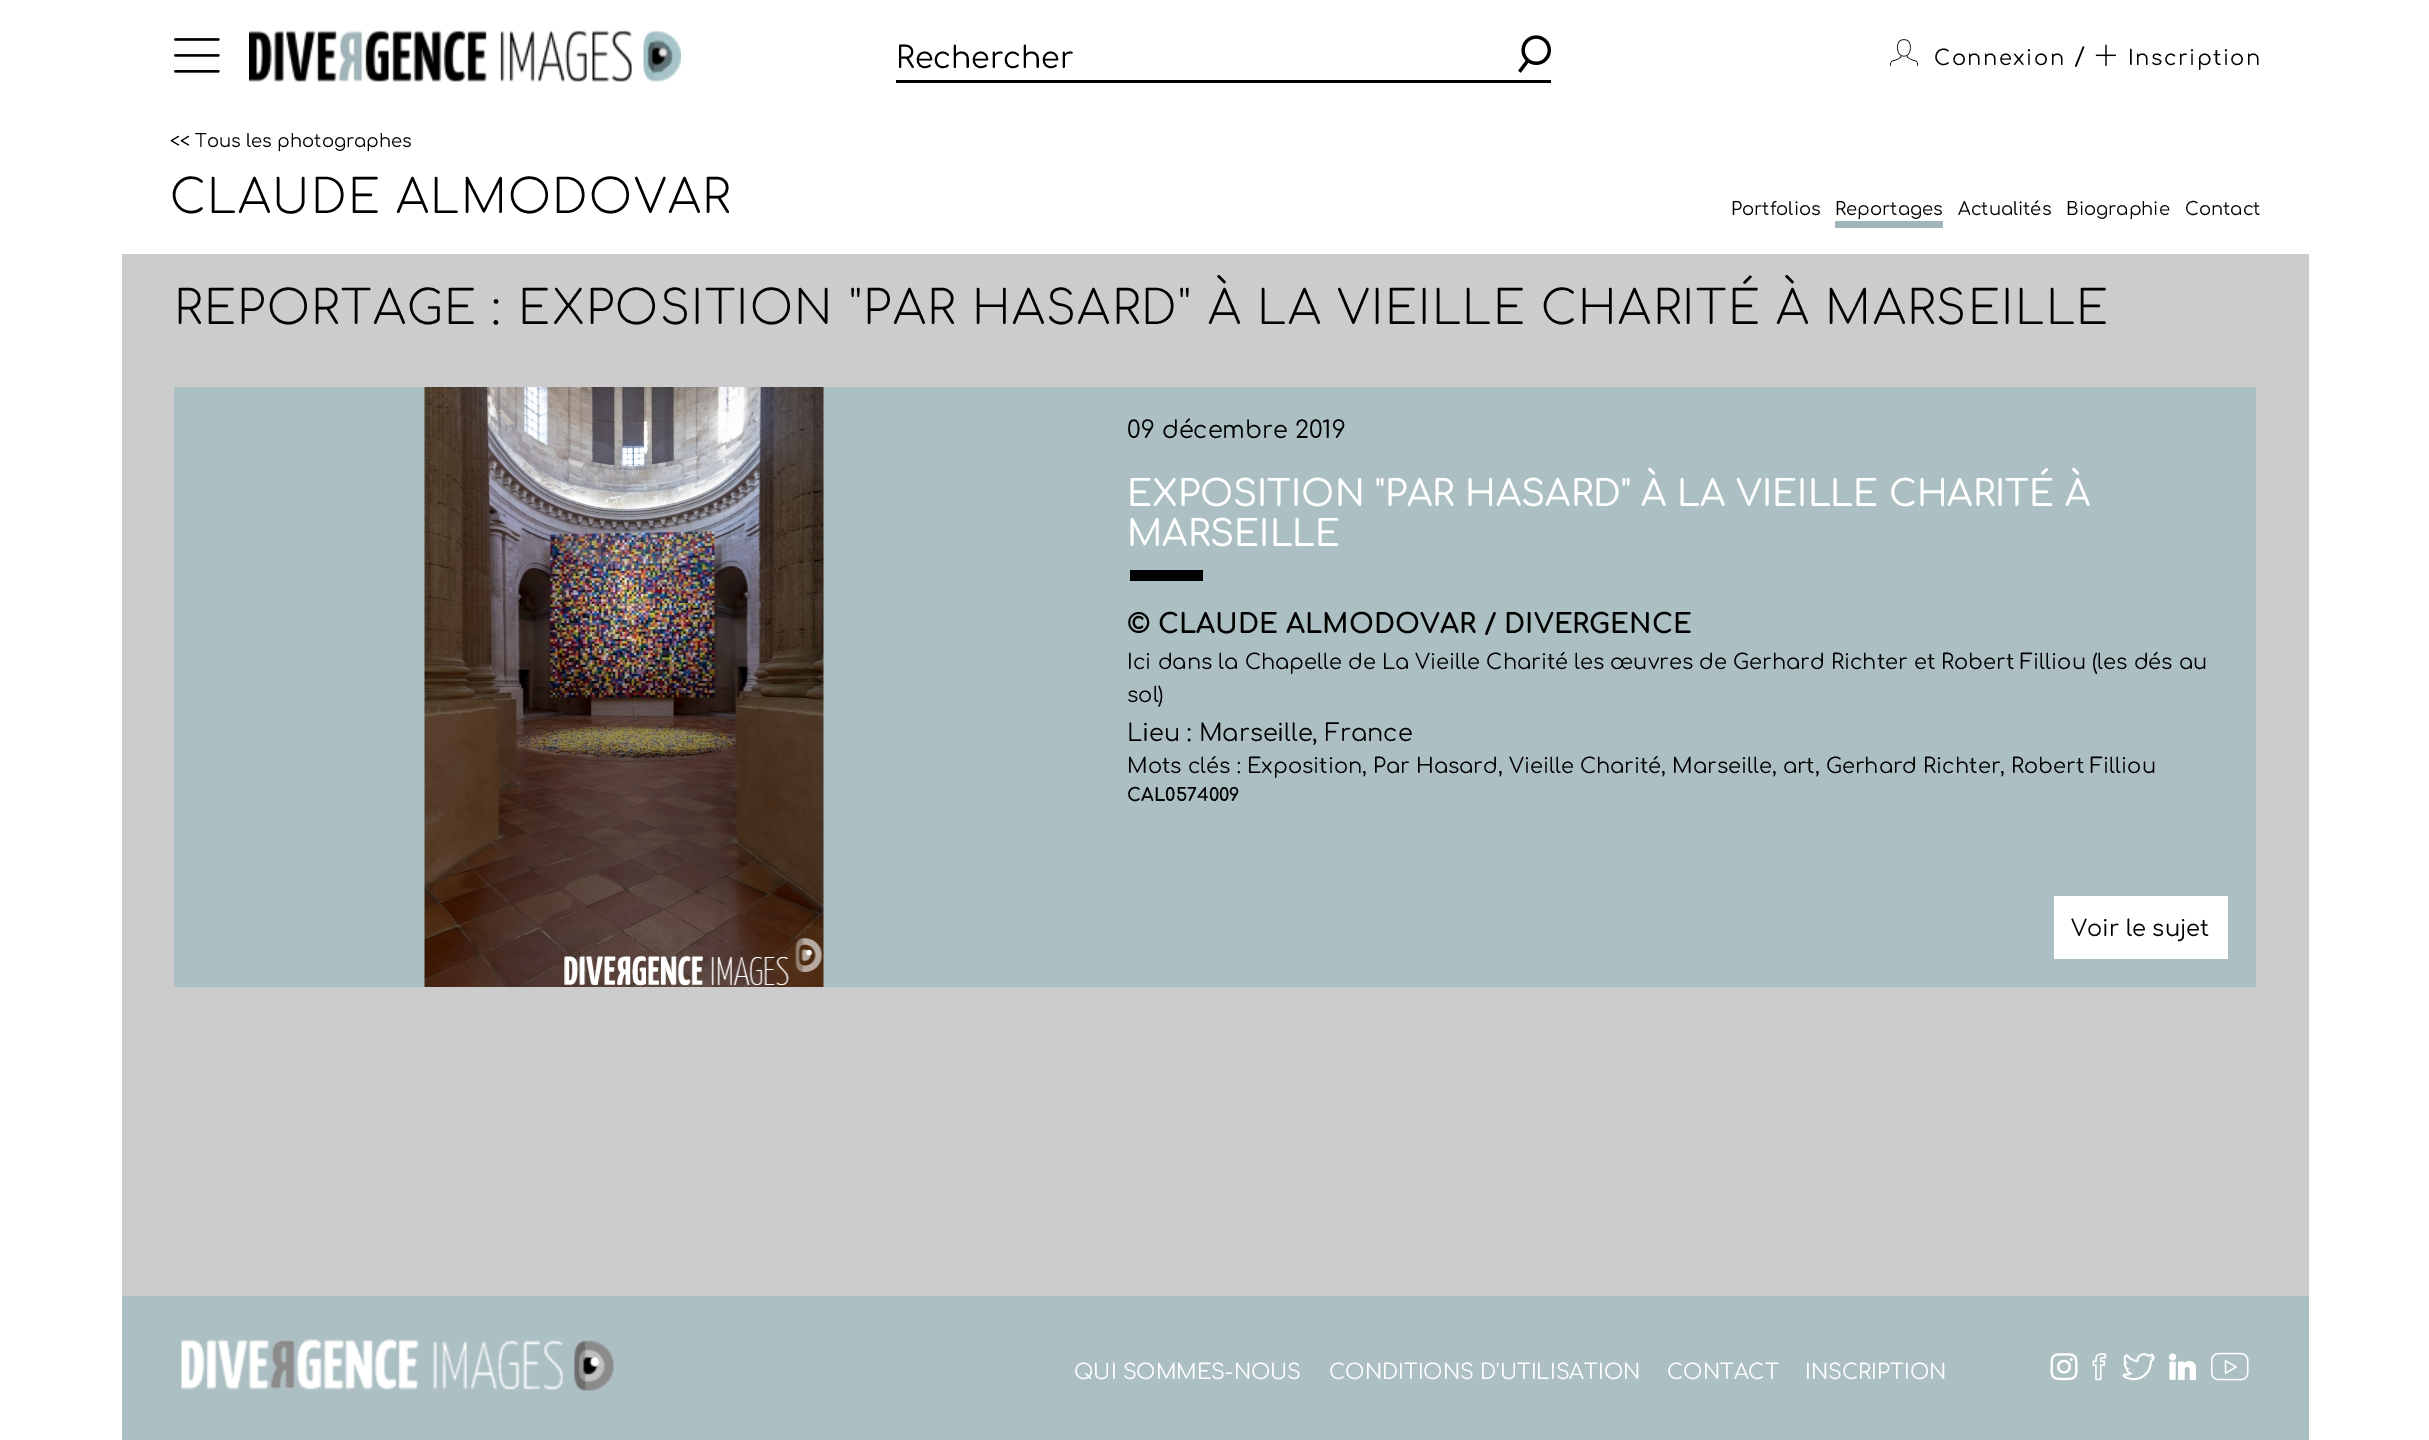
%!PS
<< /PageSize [2429 1440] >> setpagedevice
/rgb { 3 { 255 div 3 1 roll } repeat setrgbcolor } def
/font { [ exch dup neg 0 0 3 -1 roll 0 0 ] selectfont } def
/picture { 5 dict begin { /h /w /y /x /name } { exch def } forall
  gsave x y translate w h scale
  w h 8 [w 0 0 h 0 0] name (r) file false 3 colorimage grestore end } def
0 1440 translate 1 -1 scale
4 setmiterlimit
255 255 255 rgb
0 0 2429 1440 rectfill
(img/1.rgb) 174 38 46 35 picture
(img/2.rgb) 249 30 432 52 picture
0 0 0 rgb
896 80 655 3 rectfill
(img/3.rgb) 1518 35 33 38 picture
(img/4.rgb) 1890 39 29 28 picture
(img/5.rgb) 2095 44 21 22 picture
[
  [1835 221 108 7 161 180 184]
  [122 254 2187 1042 204 204 204]
  [174 387 2082 600 172 191 195]
] { aload pop rgb rectfill } forall
(img/6.rgb) 424 387 400 600 picture
[
  [1130 570 73 11 0 0 0]
  [2054 896 174 63 255 255 255]
  [122 1296 2187 144 172 191 195]
] { aload pop rgb rectfill } forall
(img/7.rgb) 181 1339 433 52 picture
(img/8.rgb) 2050 1353 28 28 picture
(img/9.rgb) 2092 1353 15 28 picture
(img/10.rgb) 2122 1353 33 28 picture
(img/11.rgb) 2169 1353 27 27 picture
(img/12.rgb) 2211 1352 38 29 picture
/Comfortaa-Regular 30 font
0 0 0 rgb
896 68 moveto (Rechercher) show
/Comfortaa-Regular 21 font
1934 65 moveto 1.5 0 (Connexion) ashow
/Comfortaa-Regular 24 font
2074 65 moveto 1.5 0 (/) ashow
/Comfortaa-Regular 21 font
2128 65 moveto 1.5 0 (Inscription) ashow
/Comfortaa-Regular 18 font
170 147 moveto (<< Tous les photographes) show
/Comfortaa-Light 46.5 font
170 213 moveto 1.5 0 (CLAUDE ALMODOVAR) ashow
/Comfortaa-Regular 18 font
[
  [(Portfolios) 1731 215]
  [(Reportages) 1835 215]
  [(Actualités) 1958 215]
  [(Biographie) 2066 215]
  [(Contact) 2185 215]
] { aload pop moveto show } forall
/Comfortaa-Light 46.5 font
174 324 moveto 1.5 0 (REPORTAGE : EXPOSITION "PAR HASARD" À LA VIEILLE CHARITÉ À MARSEILLE) ashow
/Comfortaa-Regular 24 font
1127 438 moveto (09 décembre 2019) show
/Comfortaa-Medium 36 font
255 255 255 rgb
1127 506 moveto (EXPOSITION "PAR HASARD" À LA VIEILLE CHARITÉ À) show
1127 546 moveto (MARSEILLE) show
/Comfortaa-Bold 27 font
0 0 0 rgb
1127 633 moveto (© CLAUDE ALMODOVAR / DIVERGENCE) show
/Comfortaa-Regular 21 font
1127 669 moveto (Ici dans la Chapelle de La Vieille Charité les œuvres de Gerhard Richter et Robert Filliou \(les dés au) show
1127 702 moveto (sol\)) show
/Comfortaa-Regular 24 font
1127 741 moveto (Lieu : Marseille, France) show
/Comfortaa-Regular 21 font
1127 773 moveto (Mots clés : Exposition, Par Hasard, Vieille Charité, Marseille, art, Gerhard Richter, Robert Filliou) show
/Comfortaa-Bold 18 font
1127 801 moveto (CAL0574009) show
/Comfortaa-Regular 22.5 font
2071 936 moveto (Voir le sujet) show
/Comfortaa-Regular 21 font
255 255 255 rgb
[
  [(QUI SOMMES-NOUS) 1074 1379]
  [(CONDITIONS D'UTILISATION) 1329 1379]
  [(CONTACT) 1667 1379]
  [(INSCRIPTION) 1805 1379]
] { aload pop moveto show } forall
showpage
